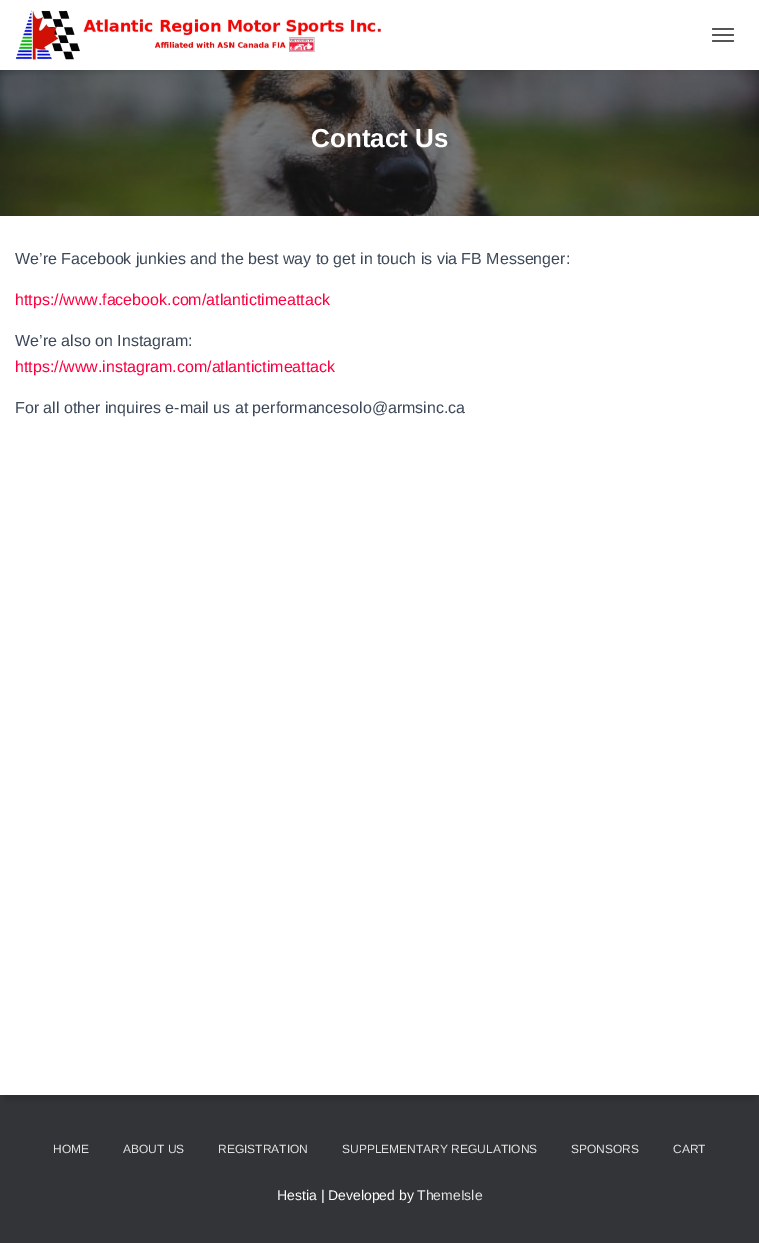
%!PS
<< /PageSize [759 1243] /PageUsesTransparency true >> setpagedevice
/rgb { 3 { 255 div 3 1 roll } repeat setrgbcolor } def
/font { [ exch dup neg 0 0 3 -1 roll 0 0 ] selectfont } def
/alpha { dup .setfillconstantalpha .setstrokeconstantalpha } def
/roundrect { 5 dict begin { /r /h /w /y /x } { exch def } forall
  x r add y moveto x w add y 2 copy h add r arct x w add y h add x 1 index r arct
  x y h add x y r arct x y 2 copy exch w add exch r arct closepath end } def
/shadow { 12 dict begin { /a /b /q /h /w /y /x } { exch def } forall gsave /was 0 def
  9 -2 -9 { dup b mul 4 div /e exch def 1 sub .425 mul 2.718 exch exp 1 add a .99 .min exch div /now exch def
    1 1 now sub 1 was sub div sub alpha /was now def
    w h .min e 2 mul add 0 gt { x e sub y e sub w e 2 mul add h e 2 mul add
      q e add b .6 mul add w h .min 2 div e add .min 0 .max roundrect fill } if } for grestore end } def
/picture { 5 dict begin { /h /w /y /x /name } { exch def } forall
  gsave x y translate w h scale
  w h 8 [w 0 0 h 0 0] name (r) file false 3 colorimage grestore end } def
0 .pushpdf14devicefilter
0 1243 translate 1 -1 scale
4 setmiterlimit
50 52 55 rgb
0 0 759 1243 rectfill
(img/2.rgb) 0 70 759 146 picture
0 0 0 rgb
6 7 747 58 0 5 0.42 shadow
255 255 255 rgb
0 0 759 70 rectfill
(img/1.rgb) 15 10 367 50 picture
85 85 85 rgb
712 28 22 2 1 roundrect fill
712 34 22 2 1 roundrect fill
712 40 22 2 1 roundrect fill
0 0 0 rgb
5 229 749 869 0 5 0.2 shadow
255 255 255 rgb
0 216 759 879 rectfill
/LiberationSans-Bold 26 font
311 147 moveto (Contact Us) show
/LiberationSans-Regular 16 font
60 72 88 rgb
15 264 moveto (We’re Facebook junkies and the best way to get in touch is via FB Messenger:) show
252 0 63 rgb
15 305 moveto (https://www.facebook.com/atlantictimeattack) show
60 72 88 rgb
15 346 moveto (We’re also on Instagram:) show
252 0 63 rgb
15 372 moveto (https://www.instagram.com/atlantictimeattack) show
60 72 88 rgb
15 413 moveto (For all other inquires e-mail us at performancesolo@armsinc.ca) show
/LiberationSans-Regular 12 font
226 227 227 rgb
[
  [(HOME) 53 1153]
  [(ABOUT US) 123 1153]
  [(REGISTRATION) 218 1153]
  [(SUPPLEMENTARY REGULATIONS) 342 1153]
  [(SPONSORS) 571 1153]
  [(CART) 673 1153]
] { aload pop moveto show } forall
/LiberationSans-Regular 14 font
255 255 255 rgb
277 1200 moveto (Hestia | Developed by) show
226 227 227 rgb
417 1200 moveto (ThemeIsle) show
.poppdf14devicefilter showpage
